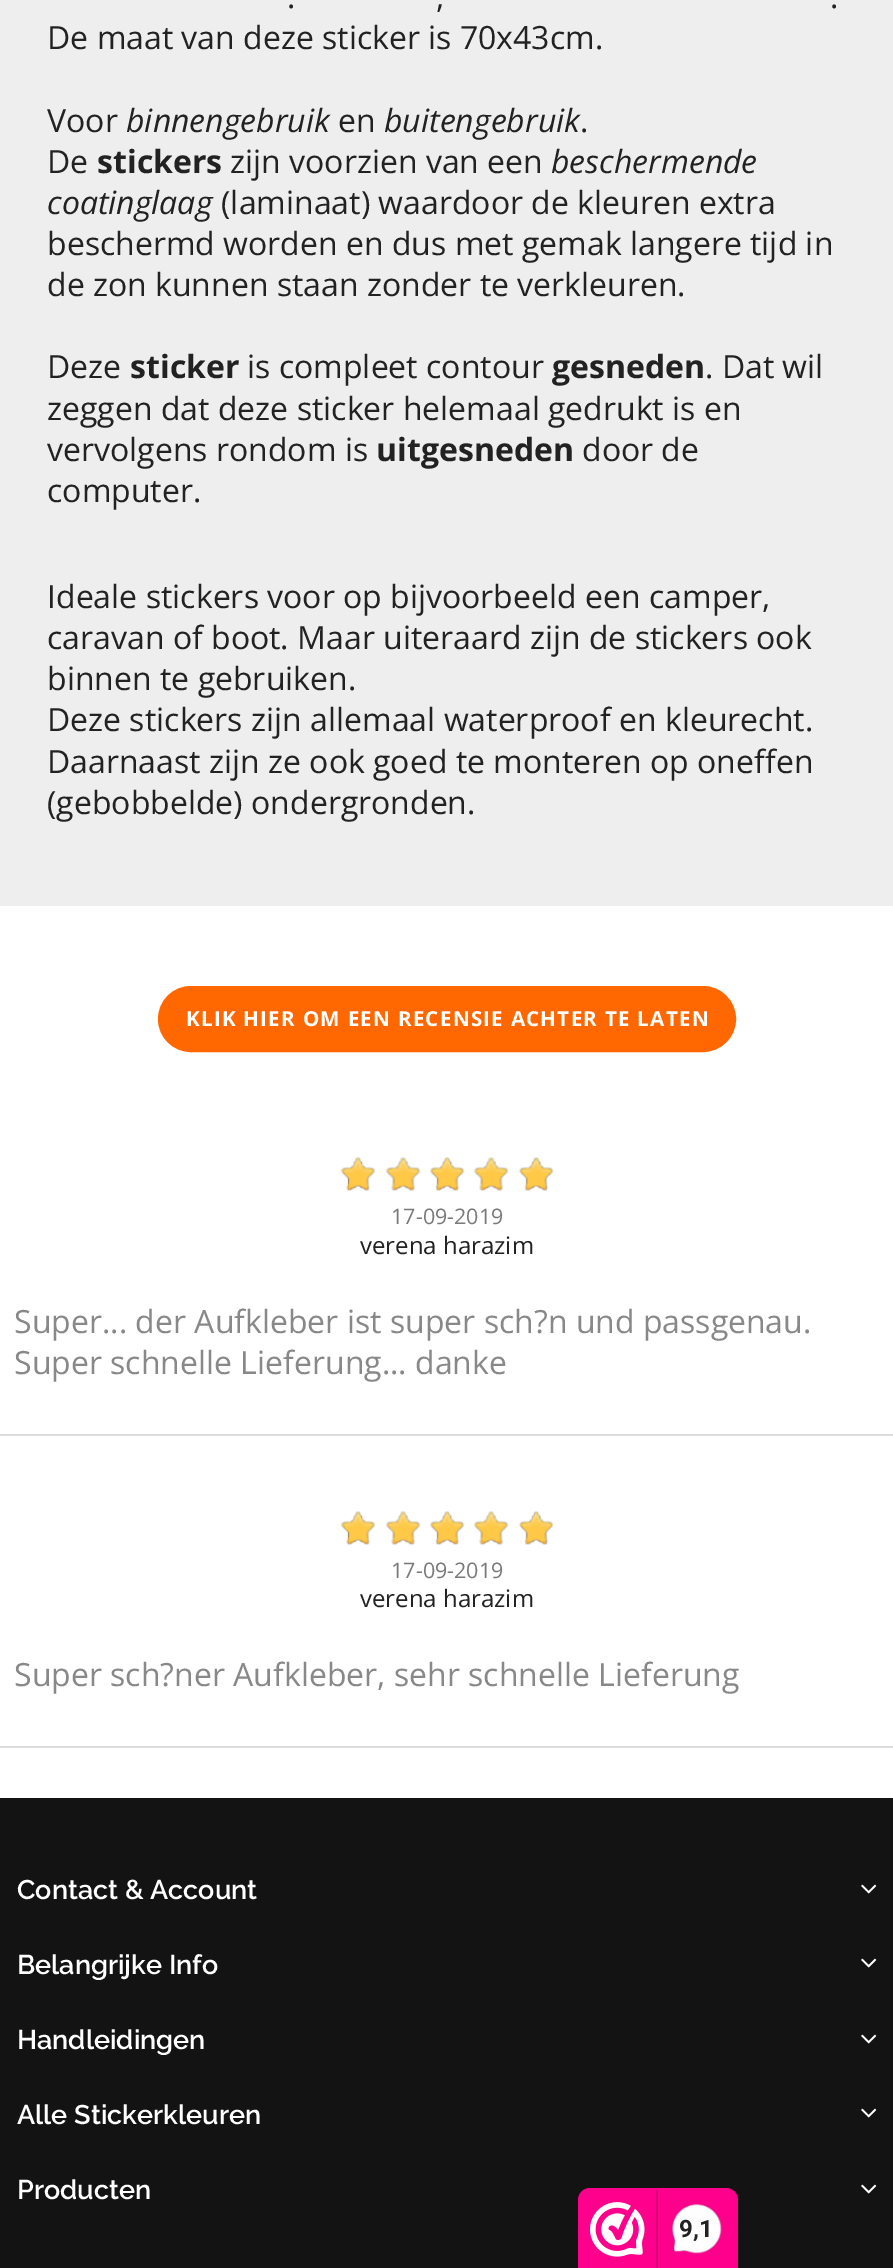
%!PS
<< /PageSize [893 2268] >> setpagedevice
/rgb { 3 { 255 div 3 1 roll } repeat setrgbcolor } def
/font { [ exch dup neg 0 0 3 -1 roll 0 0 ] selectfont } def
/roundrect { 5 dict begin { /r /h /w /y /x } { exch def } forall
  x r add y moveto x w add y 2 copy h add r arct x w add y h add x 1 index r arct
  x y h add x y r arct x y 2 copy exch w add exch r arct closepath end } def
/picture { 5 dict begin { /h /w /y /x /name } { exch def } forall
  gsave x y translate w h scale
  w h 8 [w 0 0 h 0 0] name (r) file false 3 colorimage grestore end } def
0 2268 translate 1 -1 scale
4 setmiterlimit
255 255 255 rgb
0 0 893 2268 rectfill
238 238 238 rgb
0 0 893 906 rectfill
255 103 1 rgb
159 987 576 64 32 roundrect gsave fill grestore
2 setlinewidth
stroke
(img/1.rgb) 340 1157 214 34 picture
221 221 221 rgb
0 1434 893 2 rectfill
(img/1.rgb) 340 1511 214 34 picture
0 1746 893 2 rectfill
19 19 19 rgb
0 1798 893 470 rectfill
(img/2.rgb) 861 1884 16 10 picture
(img/2.rgb) 861 1958 16 10 picture
(img/2.rgb) 861 2034 16 10 picture
(img/2.rgb) 861 2108 16 10 picture
(img/2.rgb) 861 2184 16 10 picture
254 0 140 rgb
590 2188 moveto 726 2188 lineto 732.5 2188 738 2193.5 738 2200 curveto 738 2268 lineto 578 2268 lineto 578 2200 lineto 578 2193.5 583.5 2188 590 2188 curveto closepath fill
(img/3.rgb) 590 2202 55 55 picture
216 0 119 rgb
656 2190 2 78 rectfill
(img/4.rgb) 672 2204 50 50 picture
/OpenSans-Regular 32 font
34 34 34 rgb
[
  [(.) 287 8]
  [(,) 436 8]
  [(.) 830 8]
  [(De maat van deze sticker is 70x43cm.) 47 49]
  [(Voor) 47 132]
] { aload pop moveto show } forall
/OpenSans-Italic 32 font
126 132 moveto (binnengebruik) show
/OpenSans-Regular 32 font
338 132 moveto (en) show
/OpenSans-Italic 32 font
384 132 moveto (buitengebruik) show
/OpenSans-Regular 32 font
580 132 moveto (.) show
47 173 moveto (De) show
/OpenSans-Bold 32 font
97 173 moveto (stickers) show
/OpenSans-Regular 32 font
230 173 moveto (zijn voorzien van een) show
/OpenSans-Italic 32 font
551 173 moveto (beschermende) show
47 214 moveto (coatinglaag) show
/OpenSans-Regular 32 font
[
  [(\(laminaat\) waardoor de kleuren extra) 221 214]
  [(beschermd worden en dus met gemak langere tijd in) 47 255]
  [(de zon kunnen staan zonder te verkleuren.) 47 296]
  [(Deze) 47 378]
] { aload pop moveto show } forall
/OpenSans-Bold 32 font
130 378 moveto (sticker) show
/OpenSans-Regular 32 font
247 378 moveto (is compleet contour) show
/OpenSans-Bold 32 font
552 378 moveto (gesneden) show
/OpenSans-Regular 32 font
[
  [(. Dat wil) 705 378]
  [(zeggen dat deze sticker helemaal gedrukt is en) 47 420]
  [(vervolgens rondom is) 47 461]
] { aload pop moveto show } forall
/OpenSans-Bold 32 font
376 461 moveto (uitgesneden) show
/OpenSans-Regular 32 font
[
  [(door de) 582 461]
  [(computer.) 47 502]
  [(Ideale stickers voor op bijvoorbeeld een camper,) 47 608]
  [(caravan of boot. Maar uiteraard zijn de stickers ook) 47 649]
  [(binnen te gebruiken.) 47 690]
  [(Deze stickers zijn allemaal waterproof en kleurecht.) 47 731]
  [(Daarnaast zijn ze ook goed te monteren op oneffen) 47 773]
  [(\(gebobbelde\) ondergronden.) 47 814]
] { aload pop moveto show } forall
/OpenSans-Bold 20.6 font
255 255 255 rgb
186 1026 moveto 1.25 0 (KLIK HIER OM EEN RECENSIE ACHTER TE LATEN) ashow
/OpenSans-Regular 21.5 font
122 122 122 rgb
391 1224 moveto (17-09-2019) show
/OpenSans-Regular 24 font
34 34 34 rgb
360 1254 moveto (verena harazim) show
/OpenSans-Regular 32 font
136 136 136 rgb
14 1333 moveto (Super... der Aufkleber ist super sch?n und passgenau.) show
14 1374 moveto (Super schnelle Lieferung... danke) show
/OpenSans-Regular 21.5 font
122 122 122 rgb
391 1578 moveto (17-09-2019) show
/OpenSans-Regular 24 font
34 34 34 rgb
360 1607 moveto (verena harazim) show
/OpenSans-Regular 32 font
136 136 136 rgb
14 1686 moveto (Super sch?ner Aufkleber, sehr schnelle Lieferung) show
/Raleway-SemiBold 27 font
255 255 255 rgb
[
  [(Contact & Account) 17 1899]
  [(Belangrijke Info) 17 1974]
  [(Handleidingen) 17 2049]
  [(Alle Stickerkleuren) 17 2124]
  [(Producten) 17 2199]
] { aload pop moveto show } forall
/Roboto-Bold 24 font
34 34 34 rgb
679 2237 moveto (9,1) show
showpage
